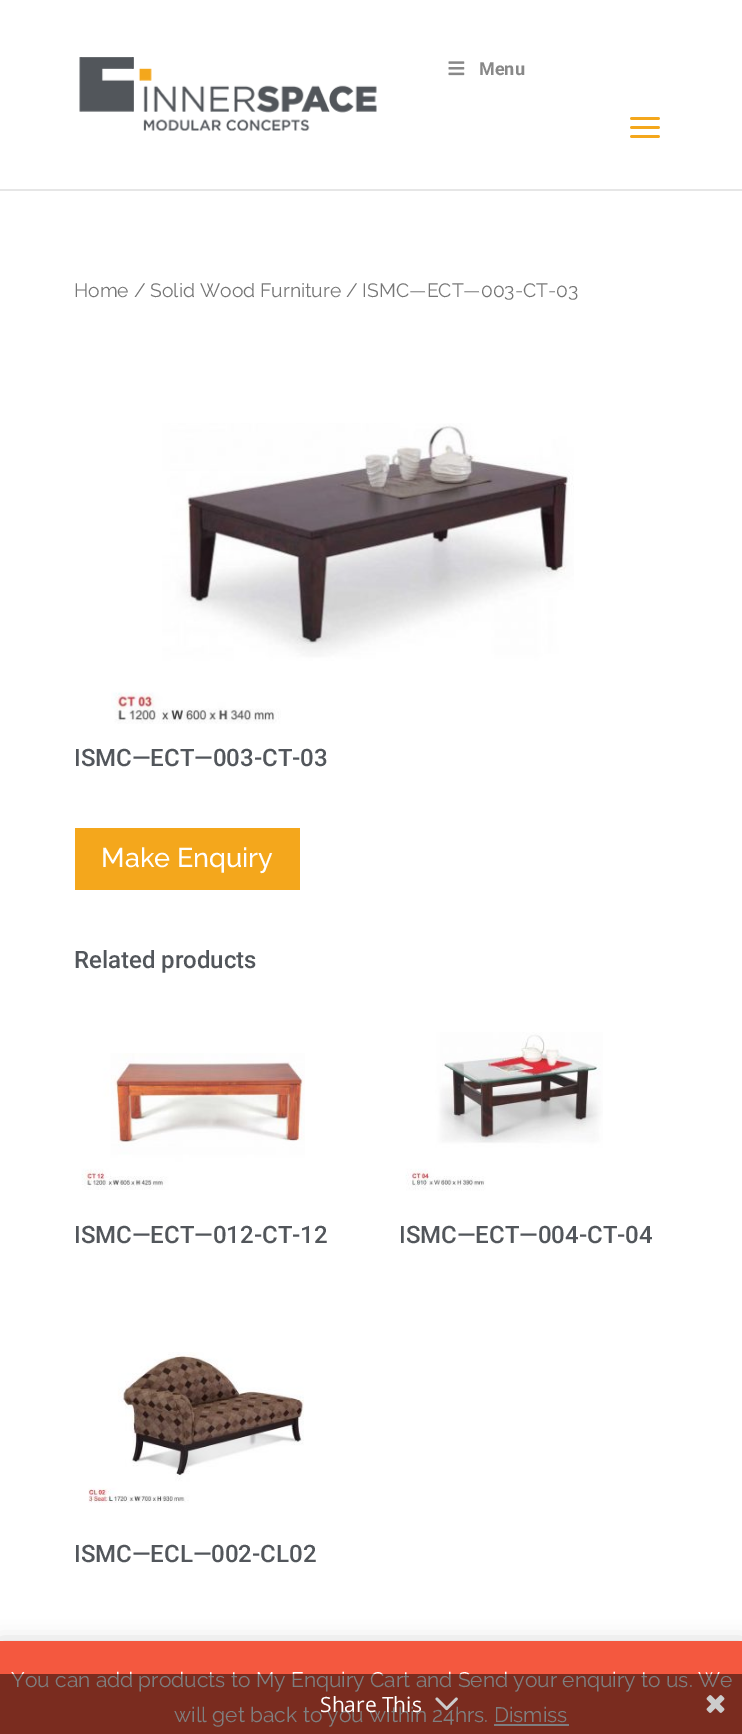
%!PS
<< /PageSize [742 1734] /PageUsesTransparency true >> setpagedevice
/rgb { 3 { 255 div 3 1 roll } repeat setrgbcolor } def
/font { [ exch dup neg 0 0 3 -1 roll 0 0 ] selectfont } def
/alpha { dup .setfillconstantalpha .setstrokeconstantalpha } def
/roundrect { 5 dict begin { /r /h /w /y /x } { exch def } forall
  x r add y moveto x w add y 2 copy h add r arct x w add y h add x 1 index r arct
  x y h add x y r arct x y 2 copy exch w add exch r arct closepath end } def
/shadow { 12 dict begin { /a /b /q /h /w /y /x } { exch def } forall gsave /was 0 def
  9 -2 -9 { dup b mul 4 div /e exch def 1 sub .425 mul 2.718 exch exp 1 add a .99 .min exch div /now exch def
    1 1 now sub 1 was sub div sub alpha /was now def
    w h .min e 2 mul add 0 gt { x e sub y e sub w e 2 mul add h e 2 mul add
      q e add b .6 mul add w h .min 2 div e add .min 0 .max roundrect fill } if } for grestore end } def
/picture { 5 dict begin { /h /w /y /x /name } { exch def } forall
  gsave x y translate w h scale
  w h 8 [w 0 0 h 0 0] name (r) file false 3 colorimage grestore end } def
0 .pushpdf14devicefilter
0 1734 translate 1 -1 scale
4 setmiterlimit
255 255 255 rgb
0 0 742 1734 rectfill
230 230 230 rgb
0 189 moveto 0 191 lineto 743 191 lineto 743 2 lineto 742 2 lineto 742 189 lineto closepath fill
(img/1.rgb) 79 57 298 74 picture
(img/2.rgb) 448 61 17 15 picture
(img/3.rgb) 630 117 30 21 picture
(img/4.rgb) 111 423 463 301 picture
244 167 28 rgb
75 828 225 62 rectfill
(img/5.rgb) 81 1053 224 137 picture
(img/6.rgb) 405 1032 198 159 picture
(img/7.rgb) 88 1352 216 151 picture
0 0 0 rgb
0 1643 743 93 0 10.5 0.2 shadow
244 88 63 rgb
0 1641 742 93 rectfill
/Roboto-Bold 18 font
136 136 136 rgb
479 75 moveto (Menu) show
/Raleway-Thin 19.3 font
118 118 118 rgb
74 297 moveto (Home / Solid Wood Furniture / ISMC—ECT—003-CT-03) show
/Roboto-Medium 24 font
82 86 91 rgb
74 766 moveto (ISMC—ECT—003-CT-03) show
/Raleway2-Thin 27 font
255 255 255 rgb
101 867 moveto (Make Enquiry) show
/Roboto-Medium 24 font
82 86 91 rgb
[
  [(Related products) 74 968]
  [(ISMC—ECT—012-CT-12) 74 1243]
  [(ISMC—ECT—004-CT-04) 399 1243]
  [(ISMC—ECL—002-CL02) 74 1562]
] { aload pop moveto show } forall
/Raleway-Thin 21 font
255 255 255 rgb
11 1687 moveto (You can add products to My Enquiry Cart and Send your enquiry to us. We) show
174 1722 moveto (will get back to you within 24hrs. Dismiss) show
252 251 254 rgb
494 1724 75 2 rectfill
0.5 alpha
0 0 0 rgb
0 1674 742 60 rectfill
/OpenSans-Regular 21 font
1 alpha
255 255 255 rgb
320 1712 moveto (Share This) show
(img/8.rgb) 435 1697 23 14 picture
(img/9.rgb) 706 1695 19 18 picture
.poppdf14devicefilter showpage
